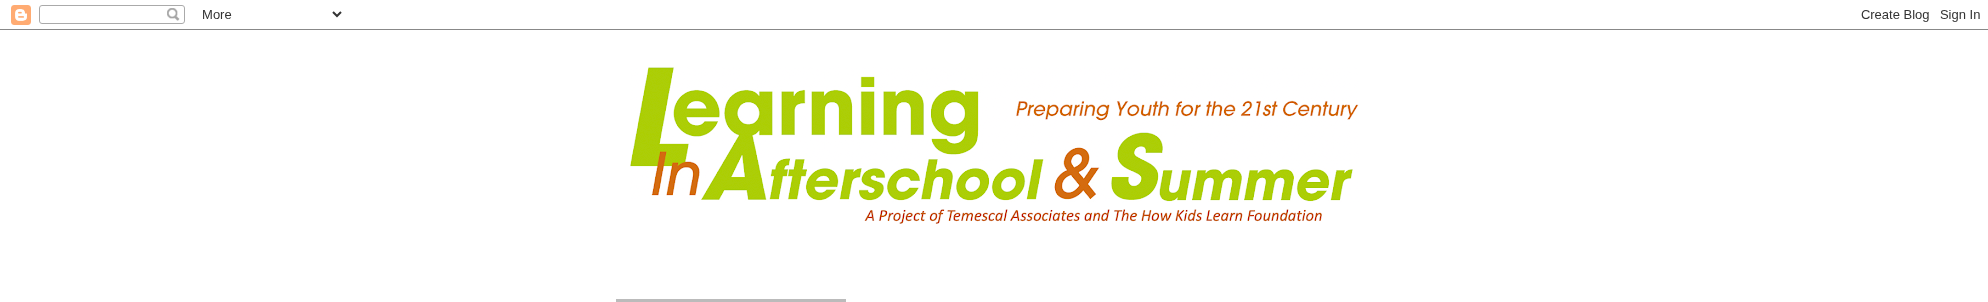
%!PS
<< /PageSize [1988 302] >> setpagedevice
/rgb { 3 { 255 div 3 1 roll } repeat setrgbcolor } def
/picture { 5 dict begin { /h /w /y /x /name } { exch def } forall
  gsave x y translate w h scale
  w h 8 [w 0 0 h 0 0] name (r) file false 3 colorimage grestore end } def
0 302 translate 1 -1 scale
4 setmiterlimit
255 255 255 rgb
0 0 1988 302 rectfill
(img/1.rgb) 0 5 1988 25 picture
(img/2.rgb) 630 67 729 157 picture
187 187 187 rgb
616 299 230 3 rectfill
showpage
